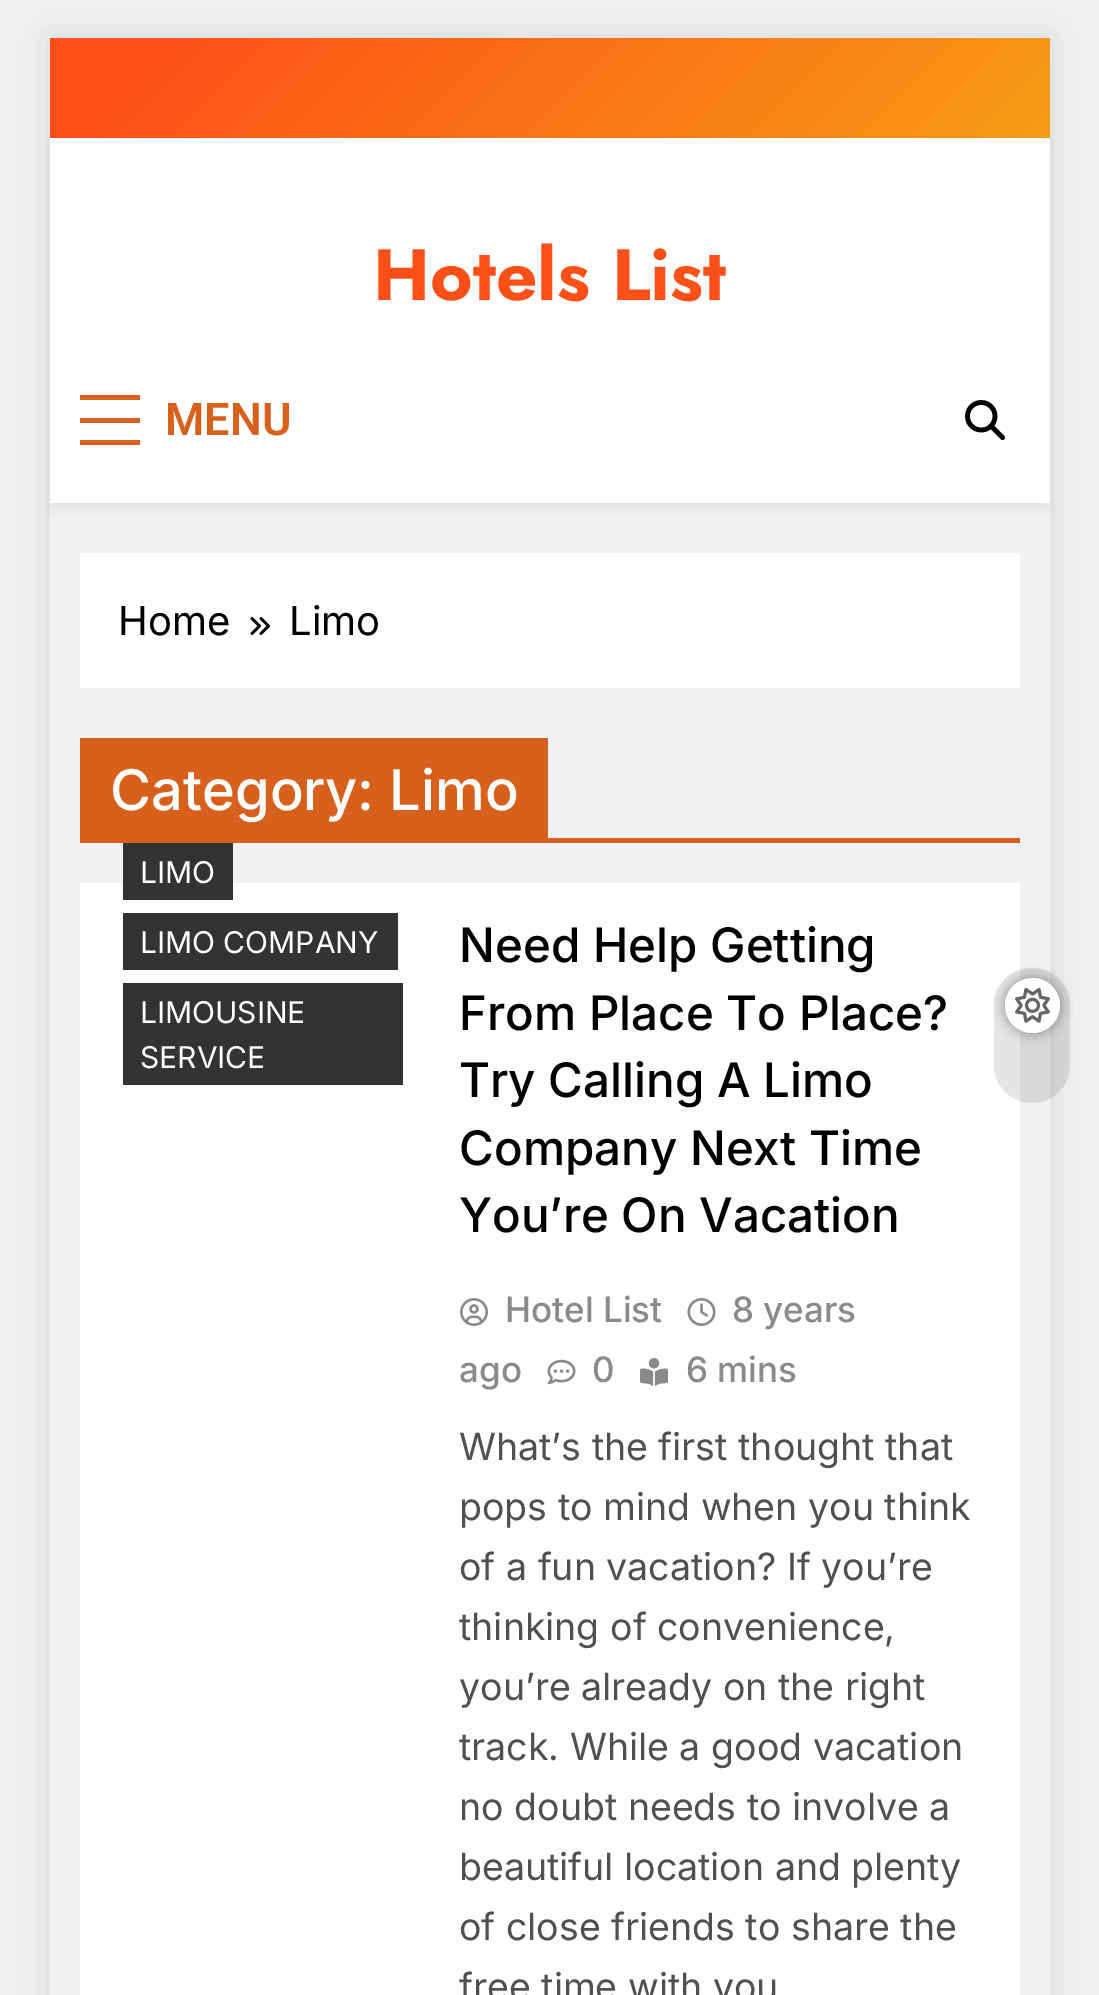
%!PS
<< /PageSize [1099 1995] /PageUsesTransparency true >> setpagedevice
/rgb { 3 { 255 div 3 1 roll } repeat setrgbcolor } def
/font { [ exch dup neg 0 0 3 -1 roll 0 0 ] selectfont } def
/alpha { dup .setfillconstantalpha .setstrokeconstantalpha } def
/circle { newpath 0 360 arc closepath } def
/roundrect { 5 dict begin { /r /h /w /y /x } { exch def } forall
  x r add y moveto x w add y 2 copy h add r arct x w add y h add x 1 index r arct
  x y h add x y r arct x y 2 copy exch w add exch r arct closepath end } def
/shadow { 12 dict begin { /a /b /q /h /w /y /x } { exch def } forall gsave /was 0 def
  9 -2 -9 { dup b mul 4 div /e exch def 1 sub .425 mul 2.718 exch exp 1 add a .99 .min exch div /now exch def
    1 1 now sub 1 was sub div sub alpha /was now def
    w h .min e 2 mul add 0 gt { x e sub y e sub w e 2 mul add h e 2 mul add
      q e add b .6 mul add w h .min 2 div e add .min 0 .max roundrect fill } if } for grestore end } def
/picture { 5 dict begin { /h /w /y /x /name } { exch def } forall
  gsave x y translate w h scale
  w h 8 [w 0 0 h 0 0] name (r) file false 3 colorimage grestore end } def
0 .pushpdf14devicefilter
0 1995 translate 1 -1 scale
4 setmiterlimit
240 241 242 rgb
0 0 1099 1995 rectfill
gsave
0 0 moveto 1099 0 lineto 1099 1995 lineto 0 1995 lineto closepath 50 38 moveto 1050 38 lineto 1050 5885 lineto 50 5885 lineto closepath eoclip newpath
0 0 0 rgb
50 38 1000 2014 0 19 0.1 shadow
grestore
gsave 50 38 moveto 1050 38 lineto 1050 138 lineto 50 138 lineto closepath clip newpath
<< /ShadingType 2 /ColorSpace /DeviceRGB /Coords [275 -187 825 363] /Extend [true true] /Function << /FunctionType 3 /Domain [0 1] /Functions [<< /FunctionType 2 /Domain [0 1] /C0 [0.992 0.31 0.094] /C1 [0.992 0.31 0.094] /N 1 >> << /FunctionType 2 /Domain [0 1] /C0 [0.992 0.31 0.094] /C1 [0.969 0.616 0.086] /N 1 >>] /Bounds [0.1] /Encode [0 1 0 1] >> >> shfill grestore
0 0 0 rgb
50 145 1000 365 0 5 0.05 shadow
[
  [50 138 1000 365 255 255 255]
  [80 395 60 5 214 96 28]
  [80 418 60 5 214 96 28]
  [80 440 60 5 214 96 28]
] { aload pop rgb rectfill } forall
(img/1.rgb) 965 400 40 40 picture
255 255 255 rgb
80 883 940 1112 rectfill
0.1 alpha
0 0 0 rgb
1070 1005 moveto 1070 1065 lineto 1070 1086 1053 1103 1032 1103 curveto 1011 1103 994 1086 994 1065 curveto 994 1005 lineto 994 985 1011 968 1032 968 curveto 1053 968 1070 985 1070 1005 curveto closepath fill
1 alpha
1005 978 55 55 27.5 6 0.35 shadow
255 255 255 rgb
1032.5 1005.5 27.5 circle fill
(img/2.rgb) 1015 987 35 36 picture
80 553 940 135 rectfill
(img/3.rgb) 250 617 20 18 picture
[
  [548 838 472 5 214 96 28]
  [80 738 468 105 214 96 28]
  [123 843 110 57 51 51 51]
  [123 913 275 57 51 51 51]
  [123 983 280 102 51 51 51]
] { aload pop rgb rectfill } forall
(img/4.rgb) 460 1298 28 28 picture
(img/5.rgb) 687 1298 29 28 picture
(img/6.rgb) 547 1359 29 26 picture
(img/7.rgb) 640 1358 28 28 picture
/Jost-Bold 72.5 font
253 79 24 rgb
373 300 moveto (Hotels List) show
/Roboto-SemiBold 45 font
214 96 28 rgb
165 435 moveto (MENU) show
/Inter-Regular 40 font
0 0 0 rgb
118 635 moveto (Home) show
289 635 moveto (Limo) show
/Inter-Medium 56 font
255 255 255 rgb
110 810 moveto (Category: Limo) show
/Inter-Regular 30 font
[
  [(LIMO) 140 883]
  [(LIMO COMPANY) 140 953]
  [(LIMOUSINE) 140 1023]
  [(SERVICE) 140 1068]
] { aload pop moveto show } forall
/Inter-Medium 47.5 font
0 0 0 rgb
[
  [(Need Help Getting) 459 962]
  [(From Place To Place?) 459 1030]
  [(Try Calling A Limo) 459 1097]
  [(Company Next Time) 459 1165]
  [(You’re On Vacation) 459 1232]
] { aload pop moveto show } forall
/Inter-Medium 35 font
138 138 140 rgb
[
  [(Hotel List) 505 1322]
  [(8 years) 732 1322]
  [(ago) 459 1382]
  [(0) 592 1382]
  [(6 mins) 686 1382]
] { aload pop moveto show } forall
/Inter-Regular 37.5 font
80 80 80 rgb
[
  [(What’s the first thought that) 459 1460]
  [(pops to mind when you think) 459 1520]
  [(of a fun vacation? If you’re) 459 1580]
  [(thinking of convenience,) 459 1640]
  [(you’re already on the right) 459 1700]
  [(track. While a good vacation) 459 1760]
  [(no doubt needs to involve a) 459 1820]
  [(beautiful location and plenty) 459 1880]
  [(of close friends to share the) 459 1940]
  [(free time with you) 459 2000]
] { aload pop moveto show } forall
.poppdf14devicefilter showpage
